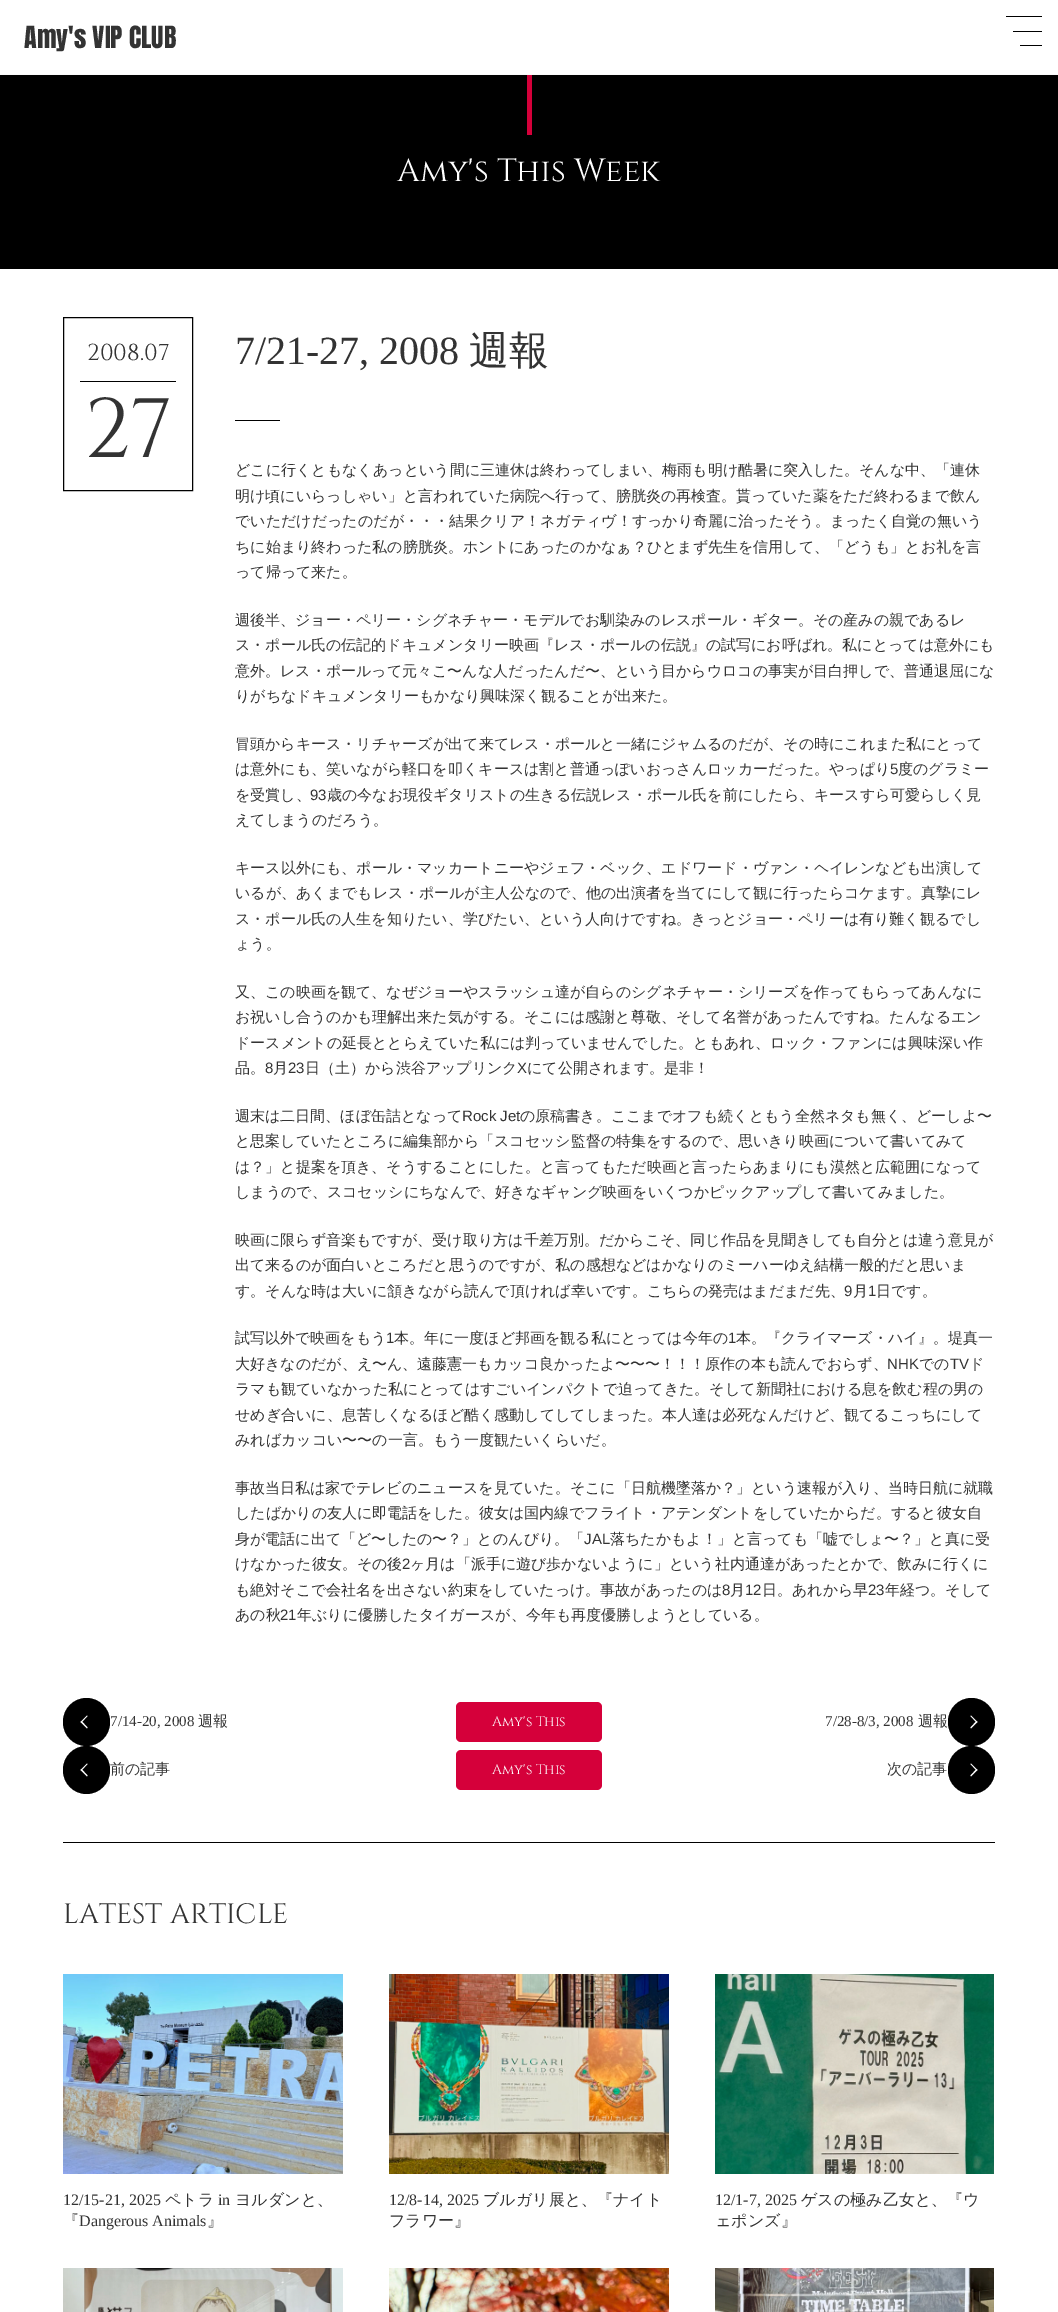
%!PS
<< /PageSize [1058 2312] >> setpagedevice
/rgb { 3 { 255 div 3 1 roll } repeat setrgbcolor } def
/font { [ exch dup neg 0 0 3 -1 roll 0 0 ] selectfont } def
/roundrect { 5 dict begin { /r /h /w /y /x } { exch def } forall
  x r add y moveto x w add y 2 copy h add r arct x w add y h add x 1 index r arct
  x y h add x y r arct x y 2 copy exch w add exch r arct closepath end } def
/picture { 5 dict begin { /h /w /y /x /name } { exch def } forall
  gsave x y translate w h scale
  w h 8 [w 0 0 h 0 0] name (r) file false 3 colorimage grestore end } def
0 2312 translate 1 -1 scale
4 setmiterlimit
255 255 255 rgb
0 0 1058 2312 rectfill
[
  [0 74 1058 1 250 250 250]
  [1006 16 36 1 0 0 0]
  [1013 31 29 1 0 0 0]
  [1020 45 22 1 0 0 0]
  [0 75 1058 194 0 0 0]
  [527 75 5 60 213 0 58]
] { aload pop rgb rectfill } forall
0 0 0 rgb
63.5 317.5 129 173 rectstroke
[
  [80 381 96 1 0 0 0]
  [235 420 45 1 0 0 0]
  [63 1842 932 1 0 0 0]
] { aload pop rgb rectfill } forall
63 1698 47 48 23.5 roundrect fill
255 255 255 rgb
87 1728.5 moveto 80.5 1722 lineto 81.5 1721 lineto 87.5 1727.5 lineto closepath fill
81.5 1722.5 moveto 80.5 1722 lineto 87 1715.5 lineto 87.5 1716 lineto closepath fill
213 0 58 rgb
456 1702 146 40 5 roundrect fill
0 0 0 rgb
948 1698 47 48 23.5 roundrect fill
255 255 255 rgb
971 1715.5 moveto 977.5 1722 lineto 976.5 1722.5 lineto 970.5 1716 lineto closepath fill
976.5 1721 moveto 977.5 1722 lineto 971 1728.5 lineto 970.5 1727.5 lineto closepath fill
0 0 0 rgb
63 1746 47 48 23.5 roundrect fill
255 255 255 rgb
87 1776.5 moveto 80.5 1770 lineto 81.5 1769 lineto 87.5 1775.5 lineto closepath fill
81.5 1770.5 moveto 80.5 1770 lineto 87 1763.5 lineto 87.5 1764 lineto closepath fill
213 0 58 rgb
456 1750 146 40 5 roundrect fill
0 0 0 rgb
948 1746 47 48 23.5 roundrect fill
255 255 255 rgb
971 1763.5 moveto 977.5 1770 lineto 976.5 1770.5 lineto 970.5 1764 lineto closepath fill
976.5 1769 moveto 977.5 1770 lineto 971 1776.5 lineto 970.5 1775.5 lineto closepath fill
(img/1.rgb) 63 1974 280 200 picture
(img/2.rgb) 389 1974 280 200 picture
(img/3.rgb) 715 1974 279 200 picture
(img/4.rgb) 63 2268 280 44 picture
(img/5.rgb) 389 2268 280 44 picture
(img/6.rgb) 715 2268 279 44 picture
/Anton-Regular 26 font
51 51 51 rgb
24 48 moveto (Amy's VIP CLUB) show
/Cinzel-Regular 32 font
255 255 255 rgb
397 181 moveto (Amy's This Week) show
/Cinzel-Regular 23 font
51 51 51 rgb
87 360 moveto (2008.07) show
/Cinzel-Regular 84 font
84 457 moveto (27) show
/LiberationSerif-Regular 40 font
235 364 moveto (7/21-27, 2008) show
/WenQuanYiZenHei-Medium 40 font
469 364 moveto (週報) show
/WenQuanYiZenHei-Medium 15 font
[
  [(どこに行くともなくあっという間に三連休は終わってしまい、梅雨も明け酷暑に突入した。そんな中、「連休) 235 475]
  [(明け頃にいらっしゃい」と言われていた病院へ行って、膀胱炎の再検査。貰っていた薬をただ終わるまで飲ん) 235 501]
  [(でいただけだったのだが・・・結果クリア！ネガティヴ！すっかり奇麗に治ったそう。まったく自覚の無いう) 235 526]
  [(ちに始まり終わった私の膀胱炎。ホントにあったのかなぁ？ひとまず先生を信用して、「どうも」とお礼を言) 235 552]
  [(って帰って来た。) 235 577]
  [(週後半、ジョー・ペリー・シグネチャー・モデルでお馴染みのレスポール・ギター。その産みの親であるレ) 235 625]
  [(ス・ポール氏の伝記的ドキュメンタリー映画『レス・ポールの伝説』の試写にお呼ばれ。私にとっては意外にも) 235 650]
  [(意外。レス・ポールって元々こ〜んな人だったんだ〜、という目からウロコの事実が目白押しで、普通退屈にな) 235 676]
  [(りがちなドキュメンタリーもかなり興味深く観ることが出来た。) 235 701]
  [(冒頭からキース・リチャーズが出て来てレス・ポールと一緒にジャムるのだが、その時にこれまた私にとって) 235 749]
  [(は意外にも、笑いながら軽口を叩くキースは割と普通っぽいおっさんロッカーだった。やっぱり) 235 774]
] { aload pop moveto show } forall
/LiberationSans-Regular 15 font
890 774 moveto (5) show
/WenQuanYiZenHei-Medium 15 font
898 774 moveto (度のグラミー) show
235 800 moveto (を受賞し、) show
/LiberationSans-Regular 15 font
310 800 moveto (93) show
/WenQuanYiZenHei-Medium 15 font
[
  [(歳の今なお現役ギタリストの生きる伝説レス・ポール氏を前にしたら、キースすら可愛らしく見) 327 800]
  [(えてしまうのだろう。) 235 825]
  [(キース以外にも、ポール・マッカートニーやジェフ・ベック、エドワード・ヴァン・ヘイレンなども出演して) 235 873]
  [(いるが、あくまでもレス・ポールが主人公なので、他の出演者を当てにして観に行ったらコケます。真摯にレ) 235 898]
  [(ス・ポール氏の人生を知りたい、学びたい、という人向けですね。きっとジョー・ペリーは有り難く観るでし) 235 924]
  [(ょう。) 235 949]
  [(又、この映画を観て、なぜジョーやスラッシュ達が自らのシグネチャー・シリーズを作ってもらってあんなに) 235 997]
  [(お祝いし合うのかも理解出来た気がする。そこには感謝と尊敬、そして名誉があったんですね。たんなるエン) 235 1022]
  [(ドースメントの延長ととらえていた私には判っていませんでした。ともあれ、ロック・ファンには興味深い作) 235 1048]
  [(品。) 235 1073]
] { aload pop moveto show } forall
/LiberationSans-Regular 15 font
265 1073 moveto (8) show
/WenQuanYiZenHei-Medium 15 font
273 1073 moveto (月) show
/LiberationSans-Regular 15 font
288 1073 moveto (23) show
/WenQuanYiZenHei-Medium 15 font
305 1073 moveto (日（土）から渋谷アップリンク) show
/LiberationSans-Regular 15 font
517 1073 moveto (X) show
/WenQuanYiZenHei-Medium 15 font
527 1073 moveto (にて公開されます。是非！) show
235 1121 moveto (週末は二日間、ほぼ缶詰となって) show
/LiberationSans-Regular 15 font
462 1121 moveto (Rock Jet) show
/WenQuanYiZenHei-Medium 15 font
[
  [(の原稿書き。ここまでオフも続くともう全然ネタも無く、どーしよ〜) 520 1121]
  [(と思案していたところに編集部から「スコセッシ監督の特集をするので、思いきり映画について書いてみて) 235 1146]
  [(は？」と提案を頂き、そうすることにした。と言ってもただ映画と言ったらあまりにも漠然と広範囲になって) 235 1172]
  [(しまうので、スコセッシにちなんで、好きなギャング映画をいくつかピックアップして書いてみました。) 235 1197]
  [(映画に限らず音楽もですが、受け取り方は千差万別。だからこそ、同じ作品を見聞きしても自分とは違う意見が) 235 1245]
  [(出て来るのが面白いところだと思うのですが、私の感想などはかなりのミーハーゆえ結構一般的だと思いま) 235 1270]
  [(す。そんな時は大いに頷きながら読んで頂ければ幸いです。こちらの発売はまだまだ先、) 235 1296]
] { aload pop moveto show } forall
/LiberationSans-Regular 15 font
844 1296 moveto (9) show
/WenQuanYiZenHei-Medium 15 font
853 1296 moveto (月) show
/LiberationSans-Regular 15 font
868 1296 moveto (1) show
/WenQuanYiZenHei-Medium 15 font
876 1296 moveto (日です。) show
235 1343 moveto (試写以外で映画をもう) show
/LiberationSans-Regular 15 font
386 1343 moveto (1) show
/WenQuanYiZenHei-Medium 15 font
394 1343 moveto (本。年に一度ほど邦画を観る私にとっては今年の) show
/LiberationSans-Regular 15 font
728 1343 moveto (1) show
/WenQuanYiZenHei-Medium 15 font
736 1343 moveto (本。『クライマーズ・ハイ』。堤真一) show
235 1369 moveto (大好きなのだが、え〜ん、遠藤憲一もカッコ良かったよ〜〜〜！！！原作の本も読んでおらず、) show
/LiberationSans-Regular 15 font
887 1369 moveto (NHK) show
/WenQuanYiZenHei-Medium 15 font
919 1369 moveto (での) show
/LiberationSans-Regular 15 font
950 1369 moveto (TV) show
/WenQuanYiZenHei-Medium 15 font
[
  [(ド) 969 1369]
  [(ラマも観ていなかった私にとってはすごいインパクトで迫ってきた。そして新聞社における息を飲む程の男の) 235 1394]
  [(せめぎ合いに、息苦しくなるほど酷く感動してしてしまった。本人達は必死なんだけど、観てるこっちにして) 235 1420]
  [(みればカッコい〜〜の一言。もう一度観たいくらいだ。) 235 1445]
  [(事故当日私は家でテレビのニュースを見ていた。そこに「日航機墜落か？」という速報が入り、当時日航に就職) 235 1493]
  [(したばかりの友人に即電話をした。彼女は国内線でフライト・アテンダントをしていたからだ。すると彼女自) 235 1518]
  [(身が電話に出て「ど〜したの〜？」とのんびり。「) 235 1544]
] { aload pop moveto show } forall
/LiberationSans-Regular 15 font
584 1544 moveto (JAL) show
/WenQuanYiZenHei-Medium 15 font
610 1544 moveto (落ちたかもよ！」と言っても「嘘でしょ〜？」と真に受) show
235 1569 moveto (けなかった彼女。その後) show
/LiberationSans-Regular 15 font
402 1569 moveto (2) show
/WenQuanYiZenHei-Medium 15 font
410 1569 moveto (ヶ月は「派手に遊び歩かないように」という社内通達があったとかで、飲みに行くに) show
235 1595 moveto (も絶対そこで会社名を出さない約束をしていたっけ。事故があったのは) show
/LiberationSans-Regular 15 font
722 1595 moveto (8) show
/WenQuanYiZenHei-Medium 15 font
730 1595 moveto (月) show
/LiberationSans-Regular 15 font
745 1595 moveto (12) show
/WenQuanYiZenHei-Medium 15 font
762 1595 moveto (日。あれから早) show
/LiberationSans-Regular 15 font
868 1595 moveto (23) show
/WenQuanYiZenHei-Medium 15 font
885 1595 moveto (年経つ。そして) show
235 1620 moveto (あの秋) show
/LiberationSans-Regular 15 font
280 1620 moveto (21) show
/WenQuanYiZenHei-Medium 15 font
297 1620 moveto (年ぶりに優勝したタイガースが、今年も再度優勝しようとしている。) show
/LiberationSerif-Regular 15 font
110 1726 moveto (7/14-20, 2008) show
/WenQuanYiZenHei-Medium 15 font
198 1726 moveto (週報) show
/Cinzel-Regular 14 font
255 255 255 rgb
492 1726 moveto (Amy's This) show
/LiberationSerif-Regular 15 font
51 51 51 rgb
825 1726 moveto (7/28-8/3, 2008) show
/WenQuanYiZenHei-Medium 15 font
918 1726 moveto (週報) show
110 1774 moveto (前の記事) show
/Cinzel-Regular 14 font
255 255 255 rgb
492 1774 moveto (Amy's This) show
/WenQuanYiZenHei-Medium 15 font
51 51 51 rgb
887 1774 moveto (次の記事) show
/Cinzel-Regular 28 font
63 1923 moveto (LATEST ARTICLE) show
/LiberationSerif-Regular 16 font
63 2205 moveto (12/15-21, 2025) show
/WenQuanYiZenHei-Medium 16 font
165 2205 moveto (ペトラ) show
/LiberationSerif-Regular 16 font
218 2205 moveto (in) show
/WenQuanYiZenHei-Medium 16 font
235 2205 moveto (ヨルダンと、) show
63 2226 moveto (『) show
/LiberationSerif-Regular 16 font
79 2226 moveto (Dangerous Animals) show
/WenQuanYiZenHei-Medium 16 font
207 2226 moveto (』) show
/LiberationSerif-Regular 16 font
389 2205 moveto (12/8-14, 2025) show
/WenQuanYiZenHei-Medium 16 font
483 2205 moveto (ブルガリ展と、『ナイト) show
389 2226 moveto (フラワー』) show
/LiberationSerif-Regular 16 font
715 2205 moveto (12/1-7, 2025) show
/WenQuanYiZenHei-Medium 16 font
801 2205 moveto (ゲスの極み乙女と、『ウ) show
715 2226 moveto (ェポンズ』) show
showpage
